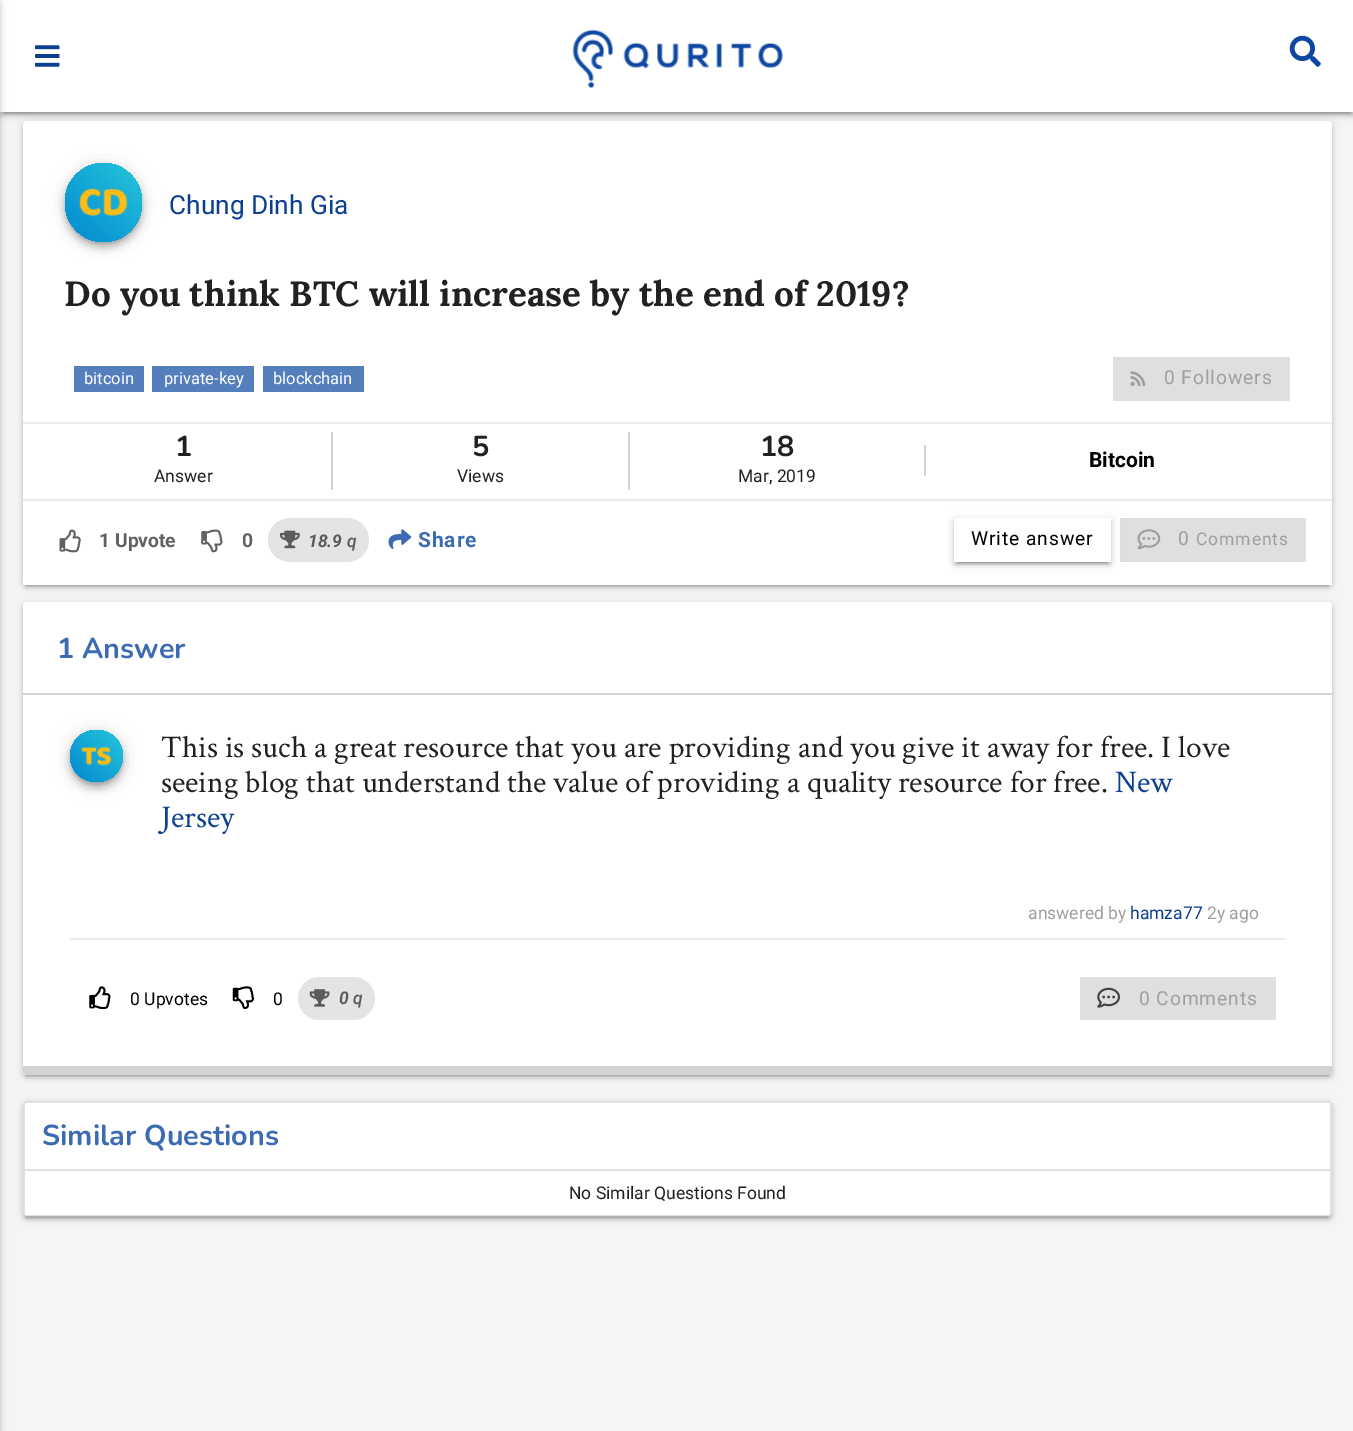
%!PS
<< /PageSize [1353 1431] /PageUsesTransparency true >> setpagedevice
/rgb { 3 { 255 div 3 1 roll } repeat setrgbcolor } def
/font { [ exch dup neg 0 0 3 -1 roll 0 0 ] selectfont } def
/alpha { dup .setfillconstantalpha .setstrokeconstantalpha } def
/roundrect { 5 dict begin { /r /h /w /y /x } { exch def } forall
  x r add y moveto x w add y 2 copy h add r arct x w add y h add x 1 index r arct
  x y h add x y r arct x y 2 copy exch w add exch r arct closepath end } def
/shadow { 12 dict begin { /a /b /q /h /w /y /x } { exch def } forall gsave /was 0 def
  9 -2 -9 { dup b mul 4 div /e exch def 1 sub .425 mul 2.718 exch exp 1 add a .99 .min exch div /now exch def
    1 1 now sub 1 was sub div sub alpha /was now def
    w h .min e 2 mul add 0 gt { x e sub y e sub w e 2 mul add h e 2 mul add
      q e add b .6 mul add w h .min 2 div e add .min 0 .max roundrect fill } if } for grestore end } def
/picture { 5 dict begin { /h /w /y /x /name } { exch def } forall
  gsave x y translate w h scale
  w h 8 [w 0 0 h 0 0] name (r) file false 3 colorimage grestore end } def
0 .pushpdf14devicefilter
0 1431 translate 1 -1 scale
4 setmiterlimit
245 245 245 rgb
0 0 1353 1431 rectfill
0 0 0 rgb
4 9 1347 105 0 1 0.2 shadow
26 130 1302 456 0 1 0.2 shadow
23 123 1309 463 4 4.5 0.12 shadow
23 124 1309 464 4 2 0.14 shadow
255 255 255 rgb
23 121 1309 464 4 roundrect fill
0 0 0 rgb
0 2 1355 112 0 4.5 0.12 shadow
0 4 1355 112 0 2 0.14 shadow
255 255 255 rgb
0 0 1353 112 rectfill
(img/1.rgb) 572 29 211 59 picture
(img/2.rgb) 1289 35 32 32 picture
0 0 0 rgb
-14 2 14 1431 0 4.5 0.12 shadow
-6 4 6 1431 0 2 0.14 shadow
(img/3.rgb) 35 45 25 22 picture
65 165 77 78 38.5 9 0.12 shadow
65 170 77 79 38.5 4.5 0.14 shadow
67 168 73 75 36.5 3.5 0.3 shadow
gsave 65 163 77 79 38.5 roundrect clip newpath
<< /ShadingType 2 /ColorSpace /DeviceRGB /Coords [64 241 142 163] /Extend [true true] /Function << /FunctionType 2 /Domain [0 1] /C0 [0.008 0.533 0.82] /C1 [0.149 0.776 0.855] /N 1 >> >> shfill grestore
(img/4.rgb) 79 188 49 28 picture
[
  [74 366 70 26 85 126 189]
  [152 366 102 26 85 126 189]
  [263 366 101 26 85 126 189]
  [1113 357 177 44 223 223 223]
] { aload pop rgb rectfill } forall
(img/5.rgb) 1130 371 16 16 picture
[
  [23 422 1309 2 236 236 236]
  [331 432 2 58 211 211 211]
  [628 432 2 58 211 211 211]
  [924 445 2 31 211 211 211]
  [23 582 1309 3 255 255 255]
  [23 499 1309 2 236 236 236]
] { aload pop rgb rectfill } forall
(img/6.rgb) 59 529 22 24 picture
(img/7.rgb) 201 529 22 24 picture
228 228 228 rgb
268 518 101 44 22 roundrect fill
(img/8.rgb) 280 530 20 19 picture
(img/9.rgb) 388 529 24 21 picture
0 0 0 rgb
957 527 151 37 0 1 0.2 shadow
223 223 223 rgb
1120 518 186 44 rectfill
0 0 0 rgb
954 520 157 44 0 4.5 0.12 shadow
954 522 157 43 0 2 0.14 shadow
255 255 255 rgb
954 518 157 44 rectfill
(img/10.rgb) 1137 529 24 21 picture
0 0 0 rgb
26 611 1302 465 0 1 0.2 shadow
23 604 1309 472 4 4.5 0.12 shadow
23 606 1309 472 4 2 0.14 shadow
255 255 255 rgb
23 602 1309 473 4 roundrect fill
211 211 211 rgb
23 693 1309 2 rectfill
255 255 255 rgb
23 695 1309 380 4 roundrect fill
211 211 211 rgb
23 1066 moveto 1332 1066 lineto 1332 1071 lineto 1332 1073 1330 1075 1328 1075 curveto 27 1075 lineto 25 1075 23 1073 23 1071 curveto closepath fill
0 0 0 rgb
70 732 53 52 26 9 0.12 shadow
70 737 53 52 26 4.5 0.14 shadow
72 735 49 49 24.5 3.5 0.3 shadow
gsave 70 730 53 52 26 roundrect clip newpath
<< /ShadingType 2 /ColorSpace /DeviceRGB /Coords [70 782 123 730] /Extend [true true] /Function << /FunctionType 2 /Domain [0 1] /C0 [0.008 0.533 0.82] /C1 [0.149 0.776 0.855] /N 1 >> >> shfill grestore
(img/11.rgb) 81 746 30 20 picture
236 236 236 rgb
70 938 1215 2 rectfill
(img/12.rgb) 89 986 22 24 picture
(img/13.rgb) 232 986 23 24 picture
228 228 228 rgb
298 977 77 43 21.5 roundrect fill
(img/14.rgb) 309 989 21 18 picture
223 223 223 rgb
1080 977 196 43 rectfill
(img/15.rgb) 1097 987 23 21 picture
0 0 0 rgb
26 1110 1302 108 0 1 0.2 shadow
23 1103 1309 115 4 4.5 0.12 shadow
23 1104 1309 116 4 2 0.14 shadow
224 224 224 rgb
2 setlinewidth
24 1102 1307 113 3 roundrect stroke
255 255 255 rgb
27 1103 moveto 1328 1103 lineto 1329 1103 1330 1104 1330 1105 curveto 1330 1171 lineto 25 1171 lineto 25 1105 lineto 25 1104 26 1103 27 1103 curveto closepath fill
224 224 224 rgb
25 1169 1305 2 rectfill
255 255 255 rgb
25 1171 moveto 1330 1171 lineto 1330 1213 lineto 1330 1214 1329 1215 1328 1215 curveto 27 1215 lineto 26 1215 25 1214 25 1213 curveto closepath fill
/Roboto-Regular 26.25 font
11 63 144 rgb
169 214 moveto (Chung Dinh Gia) show
/Lora-Bold 35 font
33 33 33 rgb
64 306 moveto (Do you think BTC will increase by the end of 2019?) show
/Roboto-Regular 16.5 font
255 255 255 rgb
[
  [(bitcoin) 84 384]
  [(private-key) 164 384]
  [(blockchain) 273 384]
] { aload pop moveto show } forall
/Roboto-Regular 19.25 font
159 159 159 rgb
1164 384 moveto 0.9 0 (0 Followers) ashow
/Nunito-Bold 28.75 font
33 33 33 rgb
175 456 moveto (1) show
/Roboto-Regular 17.5 font
154 482 moveto (Answer) show
/Nunito-Bold 28.75 font
472 456 moveto (5) show
/Roboto-Regular 17.5 font
457 482 moveto (Views) show
/Nunito-Bold 28.75 font
760 456 moveto (18) show
/Roboto-Regular 17.5 font
738 482 moveto (Mar, 2019) show
/Roboto-Bold 21 font
0 0 0 rgb
1089 467 moveto (Bitcoin) show
/Roboto-Bold 19.25 font
97 97 97 rgb
99 547 moveto (1 Upvote) show
242 547 moveto (0) show
/Roboto-BoldItalic 17.5 font
91 91 91 rgb
308 547 moveto (18.9) show
/Roboto-MediumItalic 17.5 font
347 547 moveto (q) show
/Roboto-Bold 21 font
61 107 179 rgb
418 547 moveto 0.9 0 (Share) ashow
/Roboto-Regular 19.25 font
0 0 0 rgb
971 545 moveto 0.9 0 (Write answer) ashow
159 159 159 rgb
1178 545 moveto 0.9 0 (0) ashow
/Roboto-Regular 17.5 font
1196 545 moveto 0.9 0 (Comments) ashow
/Nunito-Bold 28.75 font
61 107 179 rgb
57 658 moveto (1 Answer) show
/CrimsonText-Regular 31.5 font
33 33 33 rgb
161 757 moveto (This is such a great resource that you are providing and you give it away for free. I love) show
161 792 moveto (seeing blog that understand the value of providing a quality resource for free.) show
11 63 144 rgb
1115 792 moveto (New) show
161 827 moveto (Jersey) show
/Roboto-Regular 17.5 font
159 159 159 rgb
1028 919 moveto (answered by) show
11 63 144 rgb
1130 919 moveto (hamza77) show
159 159 159 rgb
1207 919 moveto (2y ago) show
0 0 0 rgb
130 1005 moveto (0 Upvotes) show
273 1005 moveto (0) show
/Roboto-BoldItalic 17.5 font
91 91 91 rgb
339 1004 moveto (0) show
/Roboto-MediumItalic 17.5 font
353 1004 moveto (q) show
/Roboto-Regular 19.25 font
159 159 159 rgb
1139 1005 moveto 0.9 0 (0 Comments) ashow
/Nunito-Bold 28.75 font
61 107 179 rgb
42 1145 moveto (Similar Questions) show
/Roboto-Regular 17.5 font
33 33 33 rgb
569 1199 moveto (No Similar Questions Found) show
.poppdf14devicefilter showpage
